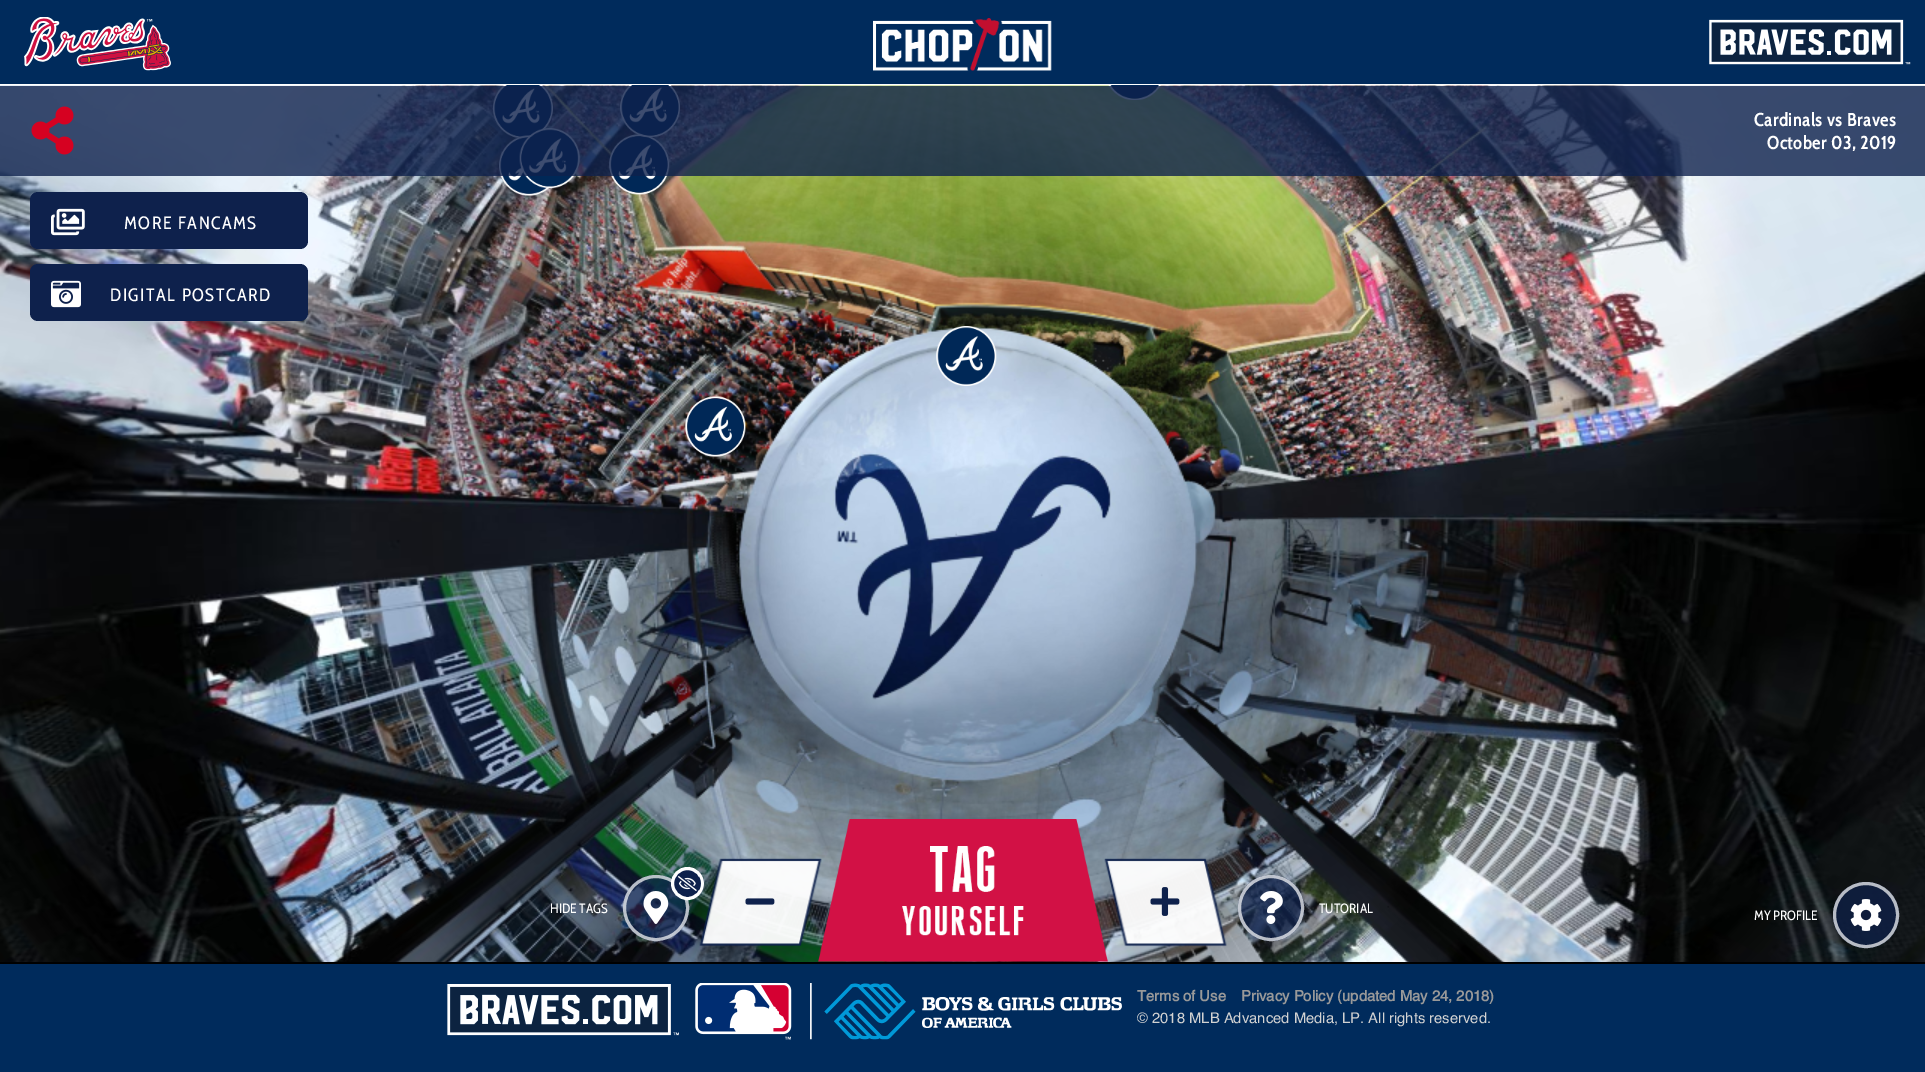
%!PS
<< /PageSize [1925 1072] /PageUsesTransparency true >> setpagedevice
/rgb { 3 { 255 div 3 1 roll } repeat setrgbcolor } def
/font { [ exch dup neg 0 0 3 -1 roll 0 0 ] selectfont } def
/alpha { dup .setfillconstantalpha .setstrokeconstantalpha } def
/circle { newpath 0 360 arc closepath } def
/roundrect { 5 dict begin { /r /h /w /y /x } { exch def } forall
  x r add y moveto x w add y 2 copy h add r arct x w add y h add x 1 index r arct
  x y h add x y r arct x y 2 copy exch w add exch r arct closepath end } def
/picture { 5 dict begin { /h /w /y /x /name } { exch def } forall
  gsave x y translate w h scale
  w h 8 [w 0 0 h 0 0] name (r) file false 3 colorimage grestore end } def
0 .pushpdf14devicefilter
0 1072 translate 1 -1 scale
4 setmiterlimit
255 255 255 rgb
0 0 1925 1072 rectfill
0 43 92 rgb
0 0 1925 84 rectfill
(img/1.rgb) 24 17 147 54 picture
(img/2.rgb) 873 18 179 53 picture
(img/3.rgb) 1709 19 202 46 picture
(img/4.rgb) 0 85 1925 877 picture
(img/5.rgb) 493 85 60 53 picture
(img/9.rgb) 609 134 61 61 picture
(img/6.rgb) 620 85 60 52 picture
(img/7.rgb) 1108 85 53 15 picture
(img/10.rgb) 499 135 53 61 picture
(img/8.rgb) 519 128 61 61 picture
(img/11.rgb) 936 326 61 60 picture
(img/12.rgb) 685 396 61 61 picture
0.8 alpha
14 33 76 rgb
0 86 1925 90 rectfill
1 alpha
(img/13.rgb) 31 106 43 49 picture
30 192 278 57 8 roundrect fill
(img/14.rgb) 51 208 34 28 picture
30 264 278 57 8 roundrect fill
(img/15.rgb) 51 280 30 28 picture
0.7 alpha
656 908 33 circle fill
255 255 255 rgb
3 setlinewidth
656 908 31.5 circle stroke
1 alpha
14 33 76 rgb
687.5 883.5 15 circle gsave fill grestore
255 255 255 rgb
stroke
(img/16.rgb) 678 876 19 15 picture
(img/17.rgb) 643 891 26 33 picture
(img/20.rgb) 818 819 290 143 picture
(img/18.rgb) 699 858 123 88 picture
(img/19.rgb) 745 898 30 7 picture
(img/21.rgb) 1104 858 123 89 picture
(img/22.rgb) 1150 887 30 29 picture
0.7 alpha
14 33 76 rgb
1271 908 33 circle fill
255 255 255 rgb
1271 908 31.5 circle stroke
1 alpha
(img/23.rgb) 1260 891 23 33 picture
0.7 alpha
14 33 76 rgb
1866 915 33 circle fill
255 255 255 rgb
1866 915 31.5 circle stroke
1 alpha
(img/24.rgb) 1850 899 32 32 picture
0 43 92 rgb
0 964 1925 108 rectfill
0 0 0 rgb
0 962 1925 2 rectfill
(img/25.rgb) 447 984 232 52 picture
(img/26.rgb) 695 983 97 57 picture
(img/27.rgb) 810 983 312 57 picture
/CabinCondensed-Bold 18 font
255 255 255 rgb
1754 126 moveto 0.75 0 (Cardinals vs Braves) ashow
1767 149 moveto 0.75 0 (October 03, 2019) ashow
/CabinCondensed-Regular 18 font
124 229 moveto 1.5 0 (MORE FANCAMS) ashow
110 301 moveto 1.5 0 (DIGITAL POSTCARD) ashow
/CabinCondensed-Regular 13.5 font
[
  [(HIDE TAGS) 550 913]
  [(TUTORIAL) 1319 913]
  [(MY PROFILE) 1754 920]
] { aload pop moveto show } forall
/Helvetica-Bold 14.8 font
153 153 153 rgb
1137 1001 moveto (Terms of Use) show
1241 1001 moveto (Privacy Policy \(updated May 24, 2018\)) show
/Helvetica-Regular 14.8 font
210 210 210 rgb
1137 1023 moveto (© 2018 MLB Advanced Media, LP. All rights reserved.) show
.poppdf14devicefilter showpage
